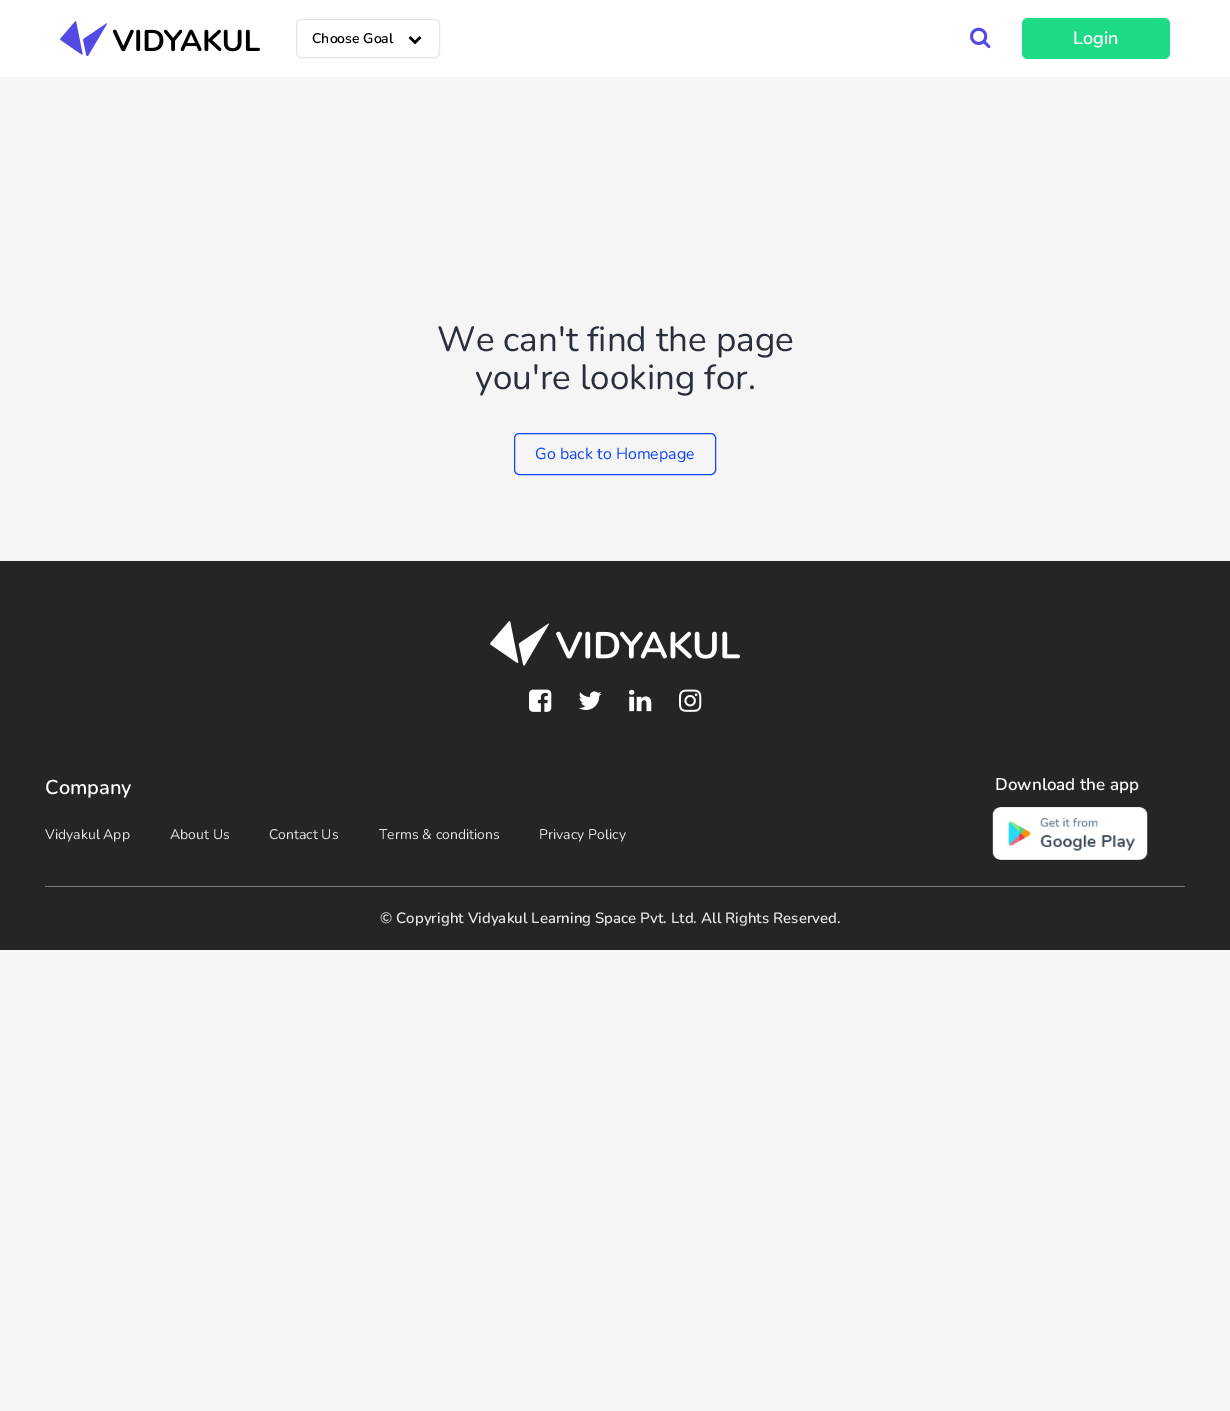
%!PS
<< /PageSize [1230 1411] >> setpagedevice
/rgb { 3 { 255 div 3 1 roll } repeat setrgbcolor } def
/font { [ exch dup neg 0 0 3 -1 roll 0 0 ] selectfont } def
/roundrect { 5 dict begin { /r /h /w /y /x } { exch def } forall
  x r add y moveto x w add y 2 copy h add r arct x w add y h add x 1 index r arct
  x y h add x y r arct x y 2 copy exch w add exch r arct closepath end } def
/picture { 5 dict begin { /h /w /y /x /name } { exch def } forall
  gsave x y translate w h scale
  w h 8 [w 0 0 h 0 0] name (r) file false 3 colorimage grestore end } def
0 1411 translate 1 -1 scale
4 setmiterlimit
245 245 245 rgb
0 0 1230 1411 rectfill
255 255 255 rgb
0 0 1230 77 rectfill
(img/1.rgb) 60 21 200 35 picture
230 230 230 rgb
296.5 19.5 143 38 4.5 roundrect stroke
(img/2.rgb) 408 36 14 9 picture
(img/3.rgb) 970 27 21 22 picture
30 218 133 rgb
1022 18 148 41 6 roundrect fill
17 71 249 rgb
514.5 433.5 201 41 4.5 roundrect stroke
37 37 37 rgb
0 561 1230 389 rectfill
(img/4.rgb) 490 621 250 45 picture
(img/5.rgb) 529 689 23 23 picture
(img/6.rgb) 578 691 24 19 picture
(img/7.rgb) 629 689 23 23 picture
(img/8.rgb) 679 689 23 23 picture
(img/9.rgb) 992 807 156 54 picture
124 124 124 rgb
45 886 1140 1 rectfill
/Nunito-SemiBold 14 font
0 0 0 rgb
312 43 moveto (Choose Goal) show
/Nunito-SemiBold 18 font
255 255 255 rgb
1073 44 moveto (Login) show
/Nunito-Regular 35 font
41 48 59 rgb
437 351 moveto (We can't find the page) show
475 389 moveto (you're looking for.) show
/Nunito-Regular 16 font
17 71 249 rgb
535 459 moveto (Go back to Homepage) show
/Nunito-SemiBold 20 font
255 255 255 rgb
45 794 moveto (Company) show
/Nunito-Regular 14 font
231 228 228 rgb
[
  [(Vidyakul App) 45 839]
  [(About Us) 170 839]
  [(Contact Us) 269 839]
  [(Terms & conditions) 379 839]
  [(Privacy Policy) 539 839]
] { aload pop moveto show } forall
/Nunito-SemiBold 17 font
255 255 255 rgb
995 790 moveto (Download the app) show
/Nunito-SemiBold 15 font
231 228 228 rgb
380 923 moveto (© Copyright Vidyakul Learning Space Pvt. Ltd. All Rights Reserved.) show
showpage
